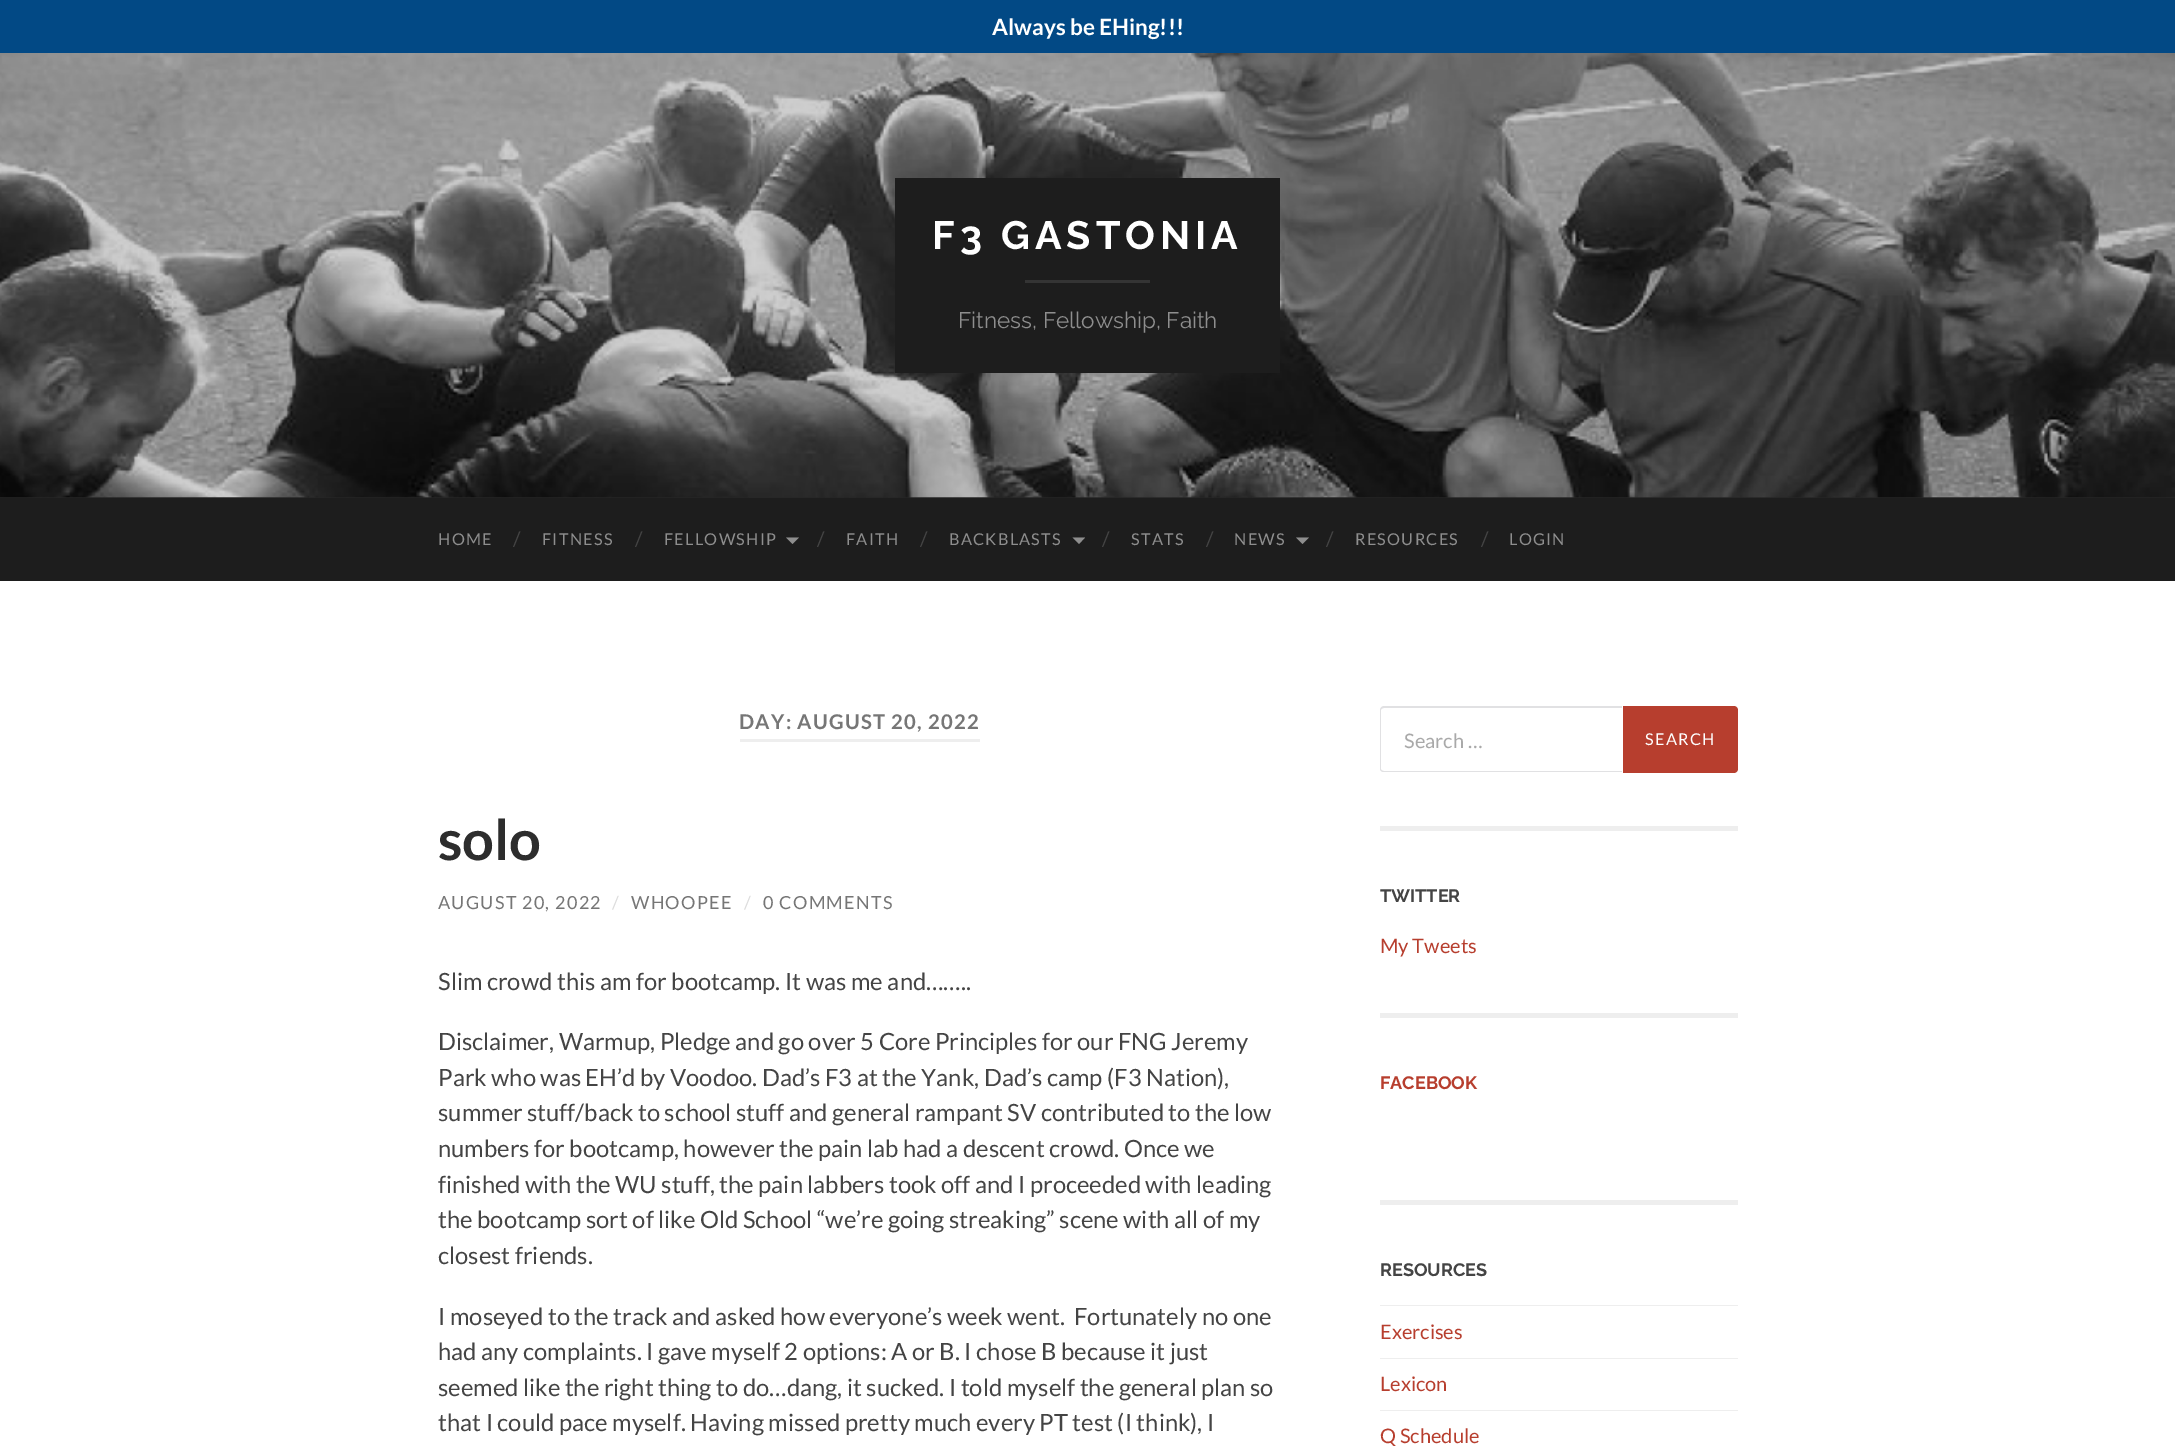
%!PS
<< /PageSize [2175 1450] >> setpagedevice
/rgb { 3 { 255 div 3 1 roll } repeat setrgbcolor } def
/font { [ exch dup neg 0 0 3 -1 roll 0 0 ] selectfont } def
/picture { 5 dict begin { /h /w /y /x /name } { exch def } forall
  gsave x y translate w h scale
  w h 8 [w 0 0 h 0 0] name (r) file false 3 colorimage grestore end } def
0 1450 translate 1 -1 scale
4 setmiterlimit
255 255 255 rgb
0 0 2175 1450 rectfill
2 73 133 rgb
0 0 2175 53 rectfill
38 38 38 rgb
0 497 2175 1 rectfill
(img/1.rgb) 0 53 2175 445 picture
[
  [895 178 385 195 29 29 29]
  [1025 280 125 3 52 52 52]
  [0 498 2175 83 29 29 29]
] { aload pop rgb rectfill } forall
142 142 142 rgb
786 537.5 moveto 799 537.5 lineto 792.5 544 lineto closepath fill
1072.5 537.5 moveto 1085 537.5 lineto 1079 544 lineto closepath fill
1296 537.5 moveto 1309 537.5 lineto 1302.5 544 lineto closepath fill
238 238 238 rgb
740 739 240 3 rectfill
1380 826 358 5 rectfill
225 225 227 rgb
1384 706 moveto 1622 706 lineto 1622 772 lineto 1384 772 lineto 1382 772 1380 771 1380 769 curveto 1380 710 lineto 1380 708 1382 706 1384 706 curveto closepath 1384 708 moveto 1622 708 lineto 1622 771 lineto 1384 771 lineto 1382 771 1381 770 1381 769 curveto 1381 710 lineto 1381 709 1382 708 1384 708 curveto closepath eofill
183 62 46 rgb
1623 706 moveto 1734 706 lineto 1736 706 1738 708 1738 710 curveto 1738 769 lineto 1738 771 1736 773 1734 773 curveto 1623 773 lineto closepath fill
[
  [1380 1013 358 5 238 238 238]
  [1380 1200 358 5 238 238 238]
  [1380 1305 358 1 238 238 238]
  [1380 1358 358 1 238 238 238]
  [1380 1410 358 1 238 238 238]
] { aload pop rgb rectfill } forall
/Lato-Bold 22.5 font
255 255 255 rgb
992 35 moveto (Always be EHing!!!) show
/Raleway-Thin 39.5 font
932 249 moveto 5 0 (F3 GASTONIA) ashow
/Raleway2-Thin 22.5 font
142 142 142 rgb
958 328 moveto (Fitness, Fellowship, Faith) show
/Lato-Regular 16.25 font
438 545 moveto 1.25 0 (HOME) ashow
/Lato-Regular 20 font
68 68 68 rgb
513 546 moveto (/) show
/Lato-Regular 16.25 font
142 142 142 rgb
542 545 moveto 1.25 0 (FITNESS) ashow
/Lato-Regular 20 font
68 68 68 rgb
635 546 moveto (/) show
/Lato-Regular 16.25 font
142 142 142 rgb
664 545 moveto 1.25 0 (FELLOWSHIP) ashow
/Lato-Regular 20 font
68 68 68 rgb
817 546 moveto (/) show
/Lato-Regular 16.25 font
142 142 142 rgb
846 545 moveto 1.25 0 (FAITH) ashow
/Lato-Regular 20 font
68 68 68 rgb
920 546 moveto (/) show
/Lato-Regular 16.25 font
142 142 142 rgb
949 545 moveto 1.25 0 (BACKBLASTS) ashow
/Lato-Regular 20 font
68 68 68 rgb
1102 546 moveto (/) show
/Lato-Regular 16.25 font
142 142 142 rgb
1131 545 moveto 1.25 0 (STATS) ashow
/Lato-Regular 20 font
68 68 68 rgb
1206 546 moveto (/) show
/Lato-Regular 16.25 font
142 142 142 rgb
1234 545 moveto 1.25 0 (NEWS) ashow
/Lato-Regular 20 font
68 68 68 rgb
1326 546 moveto (/) show
/Lato-Regular 16.25 font
142 142 142 rgb
1355 545 moveto 1.25 0 (RESOURCES) ashow
/Lato-Regular 20 font
68 68 68 rgb
1481 546 moveto (/) show
/Lato-Regular 16.25 font
142 142 142 rgb
1509 545 moveto 1.25 0 (LOGIN) ashow
/Lato-Bold 20.25 font
118 118 118 rgb
739 729 moveto 1.25 0 (DAY: AUGUST 20, 2022) ashow
/Lato-Bold 56 font
45 45 45 rgb
438 860 moveto (solo) show
/Lato-Regular 18 font
118 118 118 rgb
438 909 moveto 1.25 0 (AUGUST 20, 2022) ashow
221 221 221 rgb
612 909 moveto 1.25 0 (/) ashow
118 118 118 rgb
631 909 moveto 1.25 0 (WHOOPEE) ashow
221 221 221 rgb
744 909 moveto 1.25 0 (/) ashow
118 118 118 rgb
763 909 moveto 1.25 0 (0 COMMENTS) ashow
/Lato-Regular 23.75 font
68 68 68 rgb
[
  [(Slim crowd this am for bootcamp. It was me and……..) 438 990]
  [(Disclaimer, Warmup, Pledge and go over 5 Core Principles for our FNG Jeremy) 438 1050]
  [(Park who was EH’d by Voodoo. Dad’s F3 at the Yank, Dad’s camp \(F3 Nation\),) 438 1086]
  [(summer stuff/back to school stuff and general rampant SV contributed to the low) 438 1121]
  [(numbers for bootcamp, however the pain lab had a descent crowd. Once we) 438 1157]
  [(finished with the WU stuff, the pain labbers took off and I proceeded with leading) 438 1193]
  [(the bootcamp sort of like Old School “we’re going streaking” scene with all of my) 438 1228]
  [(closest friends.) 438 1264]
  [(I moseyed to the track and asked how everyone’s week went.  Fortunately no one) 438 1325]
  [(had any complaints. I gave myself 2 options: A or B. I chose B because it just) 438 1360]
  [(seemed like the right thing to do…dang, it sucked. I told myself the general plan so) 438 1396]
  [(that I could pace myself. Having missed pretty much every PT test \(I think\), I) 438 1431]
] { aload pop moveto show } forall
/Lato-Regular 20 font
169 169 169 rgb
1404 748 moveto (Search …) show
/Lato-Regular 16.25 font
255 255 255 rgb
1645 745 moveto 1.25 0 (SEARCH) ashow
/Raleway-Thin 18 font
68 68 68 rgb
1380 902 moveto (TWITTER) show
/Lato-Regular 20 font
183 62 46 rgb
1380 953 moveto (My Tweets) show
/Raleway-Thin 18 font
1380 1089 moveto (FACEBOOK) show
68 68 68 rgb
1380 1276 moveto (RESOURCES) show
/Lato-Regular 20 font
183 62 46 rgb
[
  [(Exercises) 1380 1339]
  [(Lexicon) 1380 1391]
  [(Q Schedule) 1380 1443]
] { aload pop moveto show } forall
showpage
